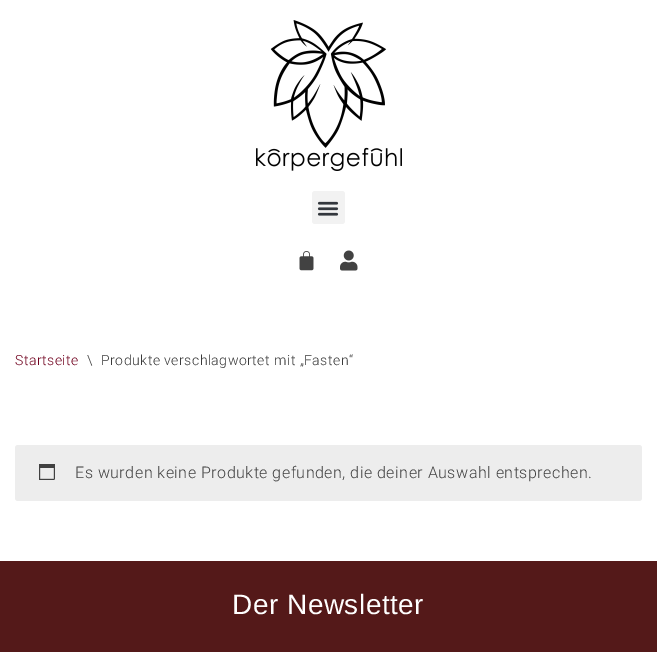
%!PS
<< /PageSize [657 652] >> setpagedevice
/rgb { 3 { 255 div 3 1 roll } repeat setrgbcolor } def
/font { [ exch dup neg 0 0 3 -1 roll 0 0 ] selectfont } def
/roundrect { 5 dict begin { /r /h /w /y /x } { exch def } forall
  x r add y moveto x w add y 2 copy h add r arct x w add y h add x 1 index r arct
  x y h add x y r arct x y 2 copy exch w add exch r arct closepath end } def
/picture { 5 dict begin { /h /w /y /x /name } { exch def } forall
  gsave x y translate w h scale
  w h 8 [w 0 0 h 0 0] name (r) file false 3 colorimage grestore end } def
0 652 translate 1 -1 scale
4 setmiterlimit
255 255 255 rgb
0 0 657 652 rectfill
(img/1.rgb) 256 20 146 151 picture
242 242 242 rgb
312 191 33 33 3 roundrect fill
(img/2.rgb) 317 201 22 15 picture
(img/3.rgb) 299 251 15 20 picture
(img/4.rgb) 340 250 18 21 picture
237 237 237 rgb
15 445 627 56 3 roundrect fill
(img/5.rgb) 39 464 16 16 picture
84 25 25 rgb
0 561 657 91 rectfill
/Roboto-Light 14 font
112 1 30 rgb
15 365 moveto 0.5 0 (Startseite) ashow
57 57 57 rgb
87 365 moveto 0.5 0 (\\) ashow
101 365 moveto 0.5 0 (Produkte verschlagwortet mit „Fasten“) ashow
/Roboto-Light 16 font
65 65 65 rgb
75 478 moveto 0.5 0 (Es wurden keine Produkte gefunden, die deiner Auswahl entsprechen.) ashow
/LiberationSans-Regular 28 font
255 255 255 rgb
232 614 moveto 0.5 0 (Der Newsletter) ashow
showpage
